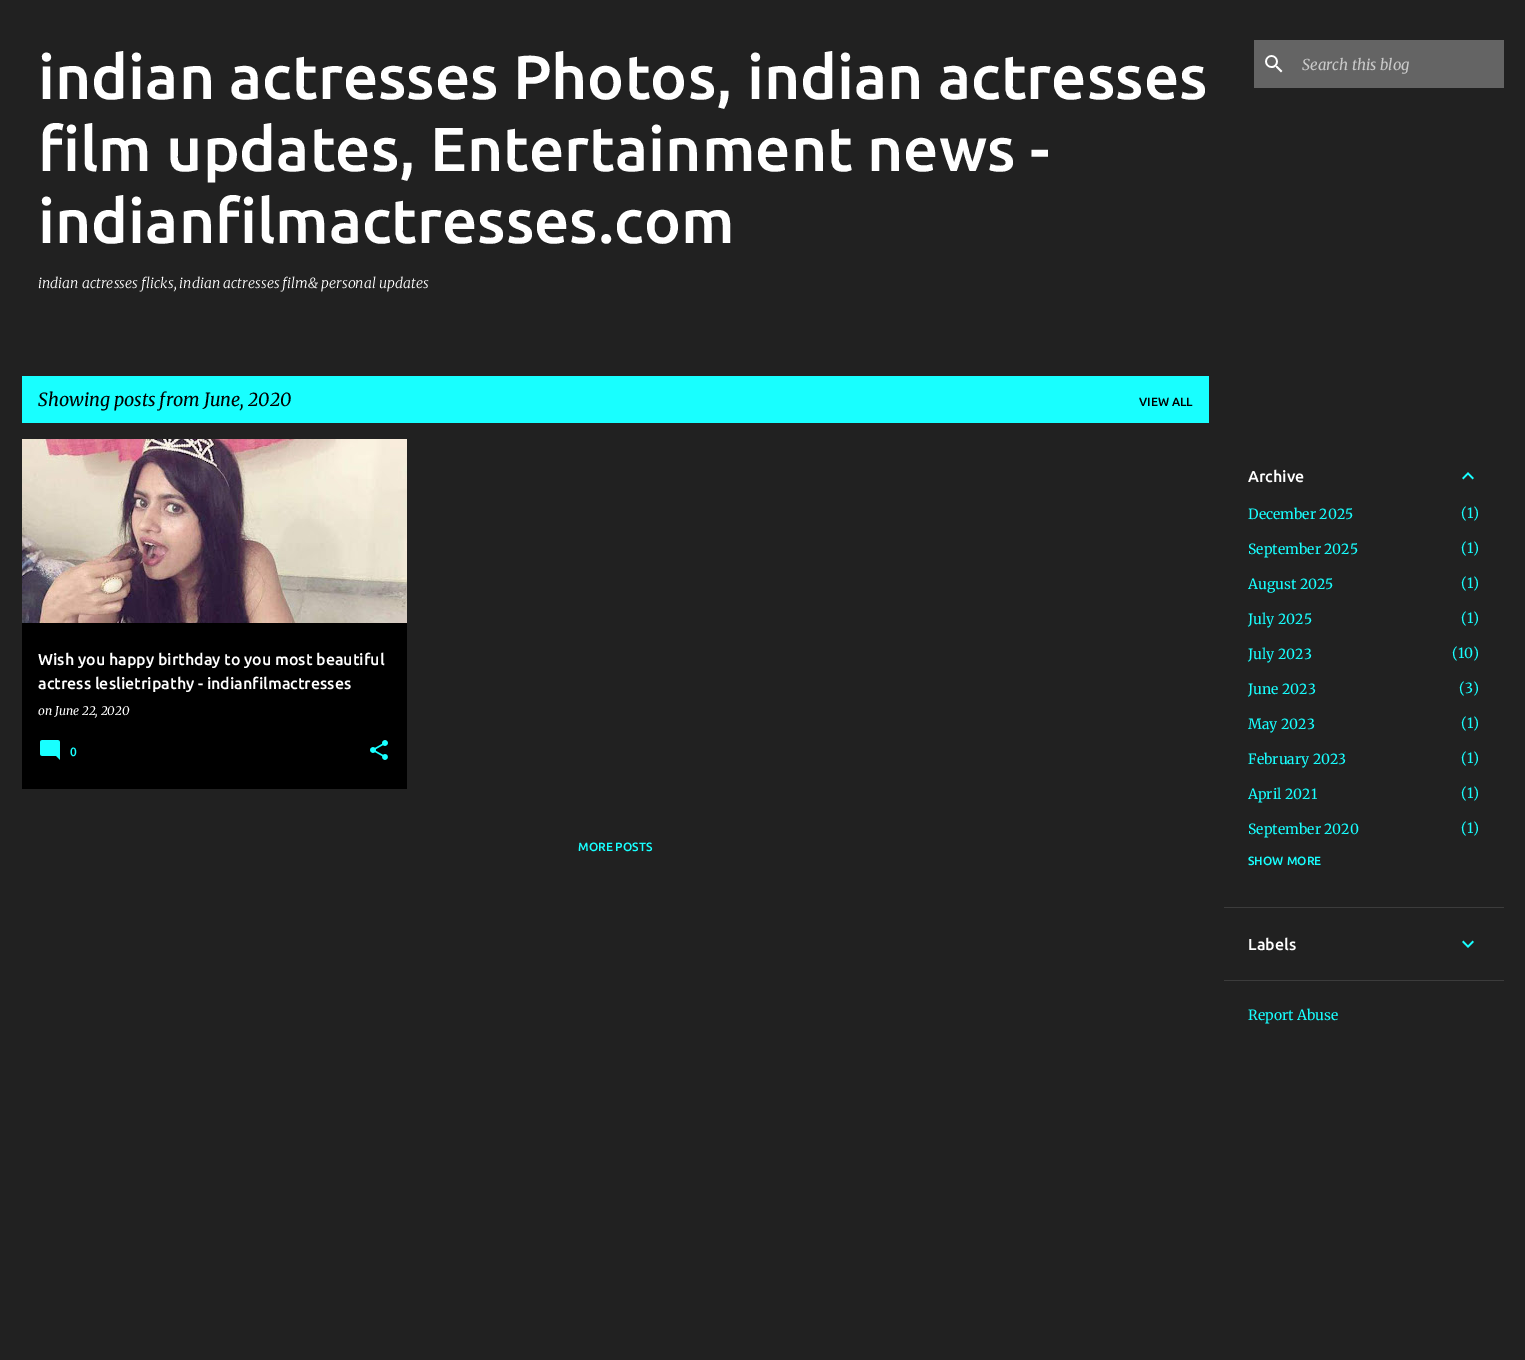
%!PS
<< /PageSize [1525 1360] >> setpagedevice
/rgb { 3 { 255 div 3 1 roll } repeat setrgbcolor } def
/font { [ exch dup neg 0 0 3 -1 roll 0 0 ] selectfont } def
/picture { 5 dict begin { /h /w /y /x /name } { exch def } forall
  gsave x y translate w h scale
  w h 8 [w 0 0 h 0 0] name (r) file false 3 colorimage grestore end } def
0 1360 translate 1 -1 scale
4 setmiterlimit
33 33 33 rgb
0 0 1525 1360 rectfill
100 100 100 rgb
1254 40 250 48 rectfill
(img/1.rgb) 1265 55 18 18 picture
24 255 255 rgb
22 376 1187 47 rectfill
0 0 0 rgb
22 623 385 166 rectfill
(img/2.rgb) 22 439 385 184 picture
(img/3.rgb) 40 740 20 20 picture
(img/4.rgb) 370 740 18 20 picture
(img/5.rgb) 1462 472 12 8 picture
60 60 60 rgb
1224 907 280 1 rectfill
(img/6.rgb) 1462 940 12 8 picture
1224 980 280 1 rectfill
/Ubuntu-Medium 62 font
255 255 255 rgb
[
  [(indian actresses Photos, indian actresses) 38 99]
  [(film updates, Entertainment news -) 38 171]
  [(indianfilmactresses.com) 38 243]
] { aload pop moveto show } forall
/Merriweather-LightItalic 14 font
38 288 moveto (indian actresses flicks, indian actresses film& personal updates) show
/Merriweather-Italic 15 font
202 202 202 rgb
1302 70 moveto (Search this blog) show
/Merriweather-Italic 18 font
0 0 0 rgb
38 406 moveto (Showing posts from June, 2020) show
/Ubuntu-Medium 12 font
1139 406 moveto (VIEW ALL) show
/Ubuntu-Medium 16 font
255 255 255 rgb
38 665 moveto (Wish you happy birthday to you most beautiful) show
38 689 moveto (actress leslietripathy - indianfilmactresses) show
/Merriweather-Italic 12 font
38 715 moveto (on June 22, 2020) show
/Ubuntu-Medium 12 font
24 255 255 rgb
70 756 moveto (0) show
578 851 moveto (MORE POSTS) show
/Ubuntu-Medium 16 font
255 255 255 rgb
1248 482 moveto (Archive) show
/Merriweather-Regular 14 font
24 255 255 rgb
[
  [(December 2025) 1248 519]
  [(\(1\)) 1461 518]
  [(September 2025) 1248 554]
  [(\(1\)) 1461 553]
  [(August 2025) 1248 589]
  [(\(1\)) 1461 588]
  [(July 2025) 1248 624]
  [(\(1\)) 1461 623]
  [(July 2023) 1248 659]
  [(\(10\)) 1452 658]
  [(June 2023) 1248 694]
  [(\(3\)) 1459 693]
  [(May 2023) 1248 729]
  [(\(1\)) 1461 728]
  [(February 2023) 1248 764]
  [(\(1\)) 1461 763]
  [(April 2021) 1248 799]
  [(\(1\)) 1461 798]
  [(September 2020) 1248 834]
  [(\(1\)) 1461 833]
] { aload pop moveto show } forall
/Ubuntu-Medium 12 font
1248 865 moveto (SHOW MORE) show
/Ubuntu-Medium 16 font
255 255 255 rgb
1248 950 moveto (Labels) show
/Merriweather-Regular 14 font
24 255 255 rgb
1248 1020 moveto (Report Abuse) show
showpage
